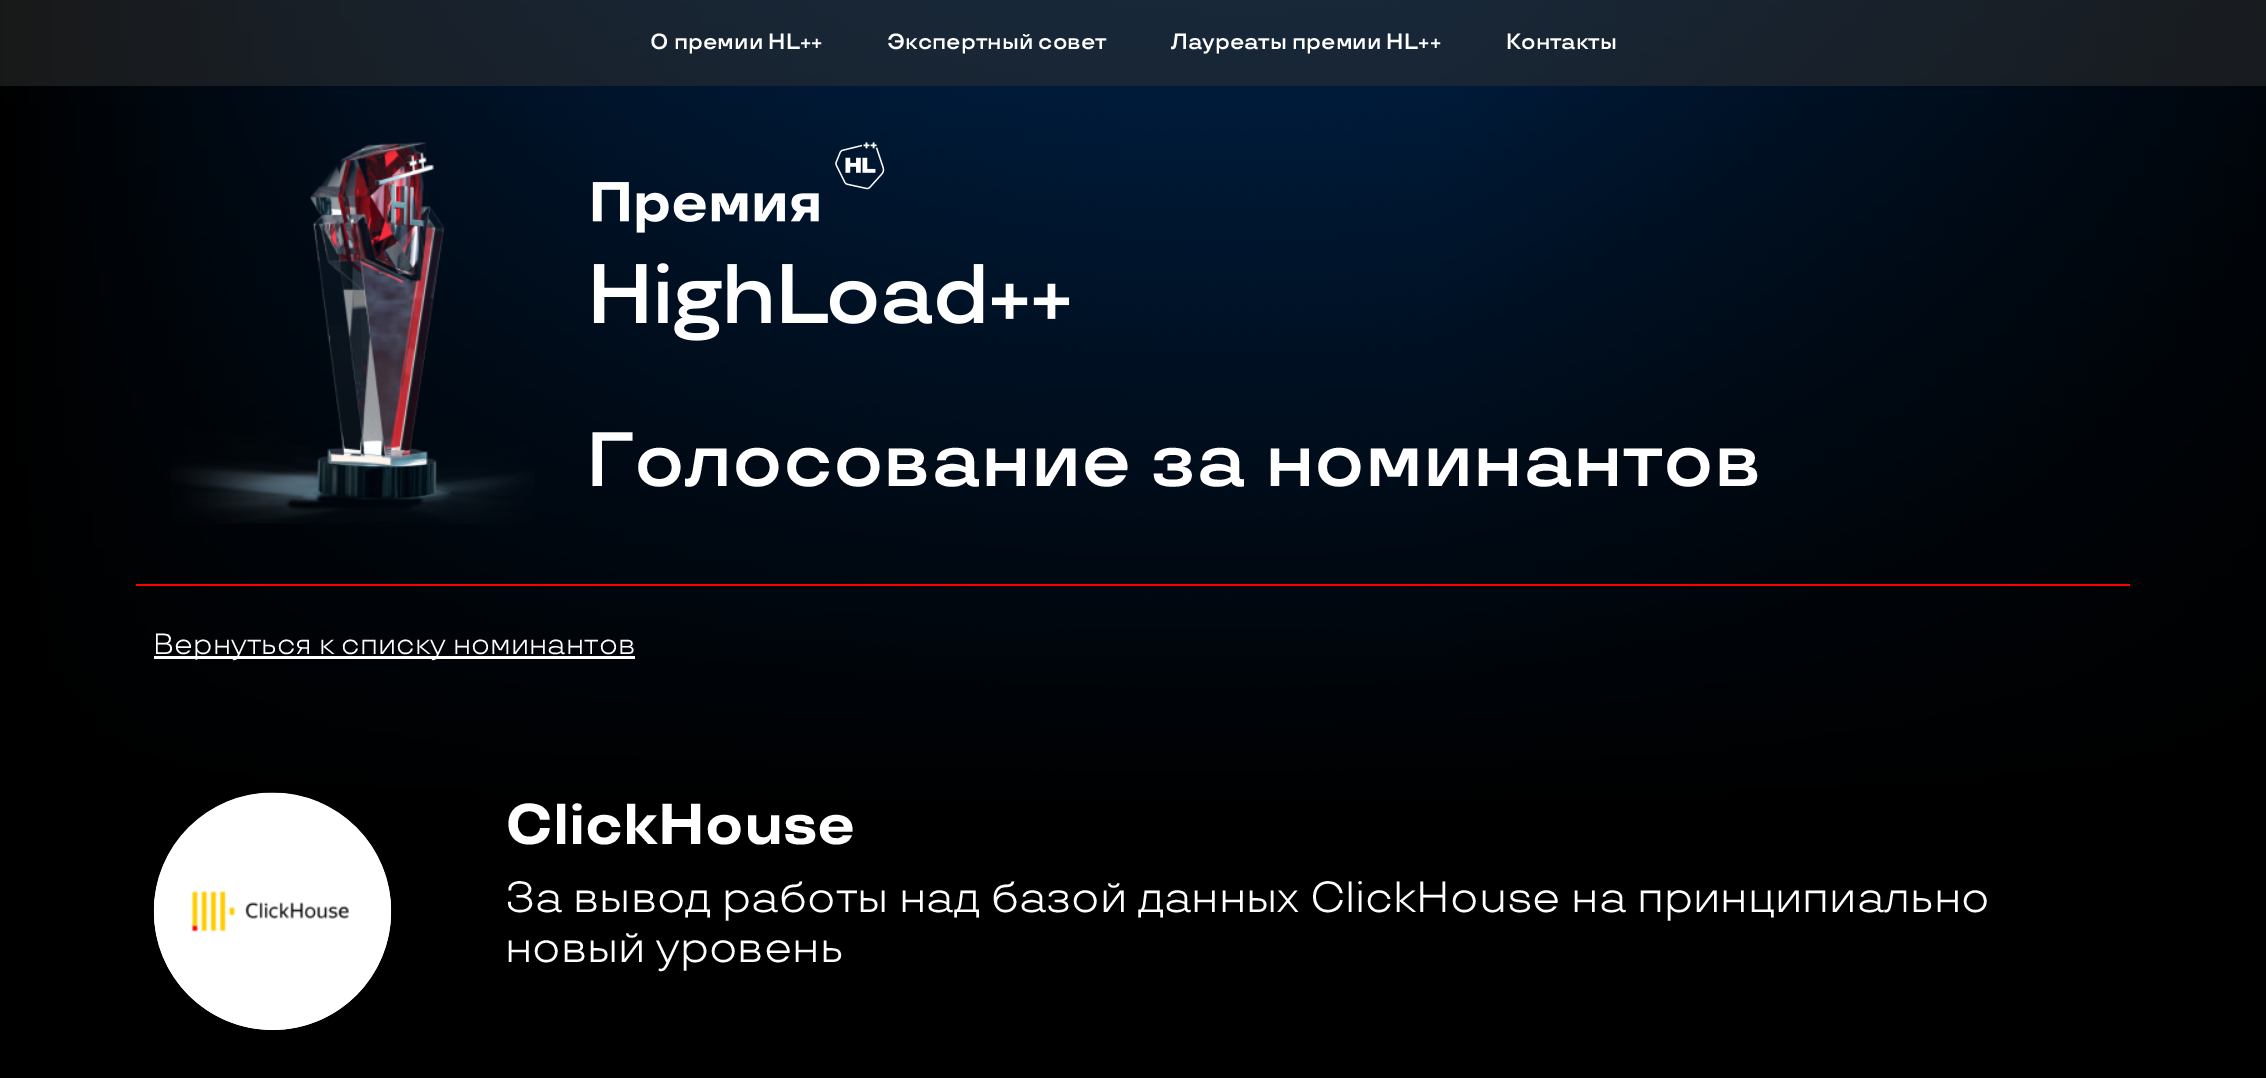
%!PS
<< /PageSize [2266 1078] /PageUsesTransparency true >> setpagedevice
/rgb { 3 { 255 div 3 1 roll } repeat setrgbcolor } def
/font { [ exch dup neg 0 0 3 -1 roll 0 0 ] selectfont } def
/alpha { dup .setfillconstantalpha .setstrokeconstantalpha } def
/circle { newpath 0 360 arc closepath } def
/picture { 5 dict begin { /h /w /y /x /name } { exch def } forall
  gsave x y translate w h scale
  w h 8 [w 0 0 h 0 0] name (r) file false 3 colorimage grestore end } def
0 .pushpdf14devicefilter
0 1078 translate 1 -1 scale
4 setmiterlimit
255 255 255 rgb
0 0 2266 1078 rectfill
(img/1.rgb) 0 0 2266 1078 picture
0.5 alpha
48 48 48 rgb
0 0 2266 86 rectfill
1 alpha
(img/2.rgb) 171 142 363 382 picture
(img/3.rgb) 592 142 478 199 picture
255 0 0 rgb
136 584 1994 2 rectfill
255 255 255 rgb
154 656 481 3 rectfill
272.5 911.5 118.5 circle fill
(img/4.rgb) 153 792 239 238 picture
/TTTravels-SemiBold 22 font
[
  [(О премии HL++) 650 49]
  [(Экспертный совет) 887 49]
  [(Лауреаты премии HL++) 1171 49]
  [(Контакты) 1506 49]
] { aload pop moveto show } forall
/TTTravels-SemiBold 76.7 font
586 486 moveto (Голосование за номинантов) show
/TTTravels-Regular 29.1 font
153 654 moveto (Вернуться к списку номинантов) show
/TTTravels-Bold 57.5 font
505 844 moveto (ClickHouse) show
/TTTravels-Regular 43.65 font
505 912 moveto (За вывод работы над базой данных ClickHouse на принципиально) show
505 962 moveto (новый уровень) show
.poppdf14devicefilter showpage
